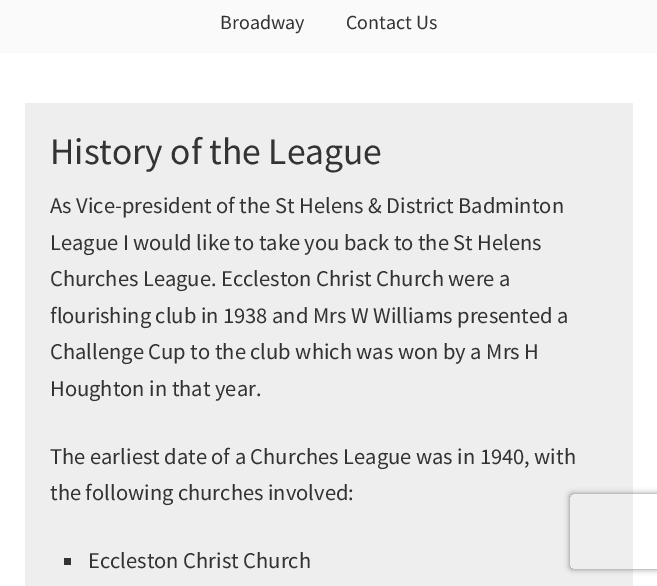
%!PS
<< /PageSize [657 586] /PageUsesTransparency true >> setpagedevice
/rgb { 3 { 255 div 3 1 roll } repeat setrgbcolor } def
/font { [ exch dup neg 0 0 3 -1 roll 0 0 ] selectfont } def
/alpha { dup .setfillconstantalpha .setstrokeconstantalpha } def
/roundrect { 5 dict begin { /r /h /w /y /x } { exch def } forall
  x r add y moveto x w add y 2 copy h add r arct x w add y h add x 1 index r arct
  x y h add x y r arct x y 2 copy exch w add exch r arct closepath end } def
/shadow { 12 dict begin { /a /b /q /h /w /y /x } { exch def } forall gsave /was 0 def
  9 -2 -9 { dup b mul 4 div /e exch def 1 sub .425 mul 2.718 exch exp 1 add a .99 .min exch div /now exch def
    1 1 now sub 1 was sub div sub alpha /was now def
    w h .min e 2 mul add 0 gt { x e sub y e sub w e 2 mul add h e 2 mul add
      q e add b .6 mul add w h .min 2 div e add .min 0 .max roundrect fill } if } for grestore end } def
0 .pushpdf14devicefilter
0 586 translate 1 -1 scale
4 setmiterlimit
255 255 255 rgb
0 0 657 586 rectfill
[
  [0 0 657 53 250 250 250]
  [25 103 608 483 238 238 238]
  [64 558 7 7 51 51 51]
] { aload pop rgb rectfill } forall
gsave
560 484 moveto 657 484 lineto 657 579 lineto 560 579 lineto closepath 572.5 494 moveto 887.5 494 lineto 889 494 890 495 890 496.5 curveto 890 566.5 lineto 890 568 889 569 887.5 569 curveto 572.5 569 lineto 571 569 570 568 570 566.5 curveto 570 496.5 lineto 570 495 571 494 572.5 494 curveto closepath eoclip newpath
128 128 128 rgb
570 494 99 75 2.5 3 1 shadow
grestore
/SourceSansPro-Regular 20 font
220 29 moveto (Broadway) show
346 29 moveto (Contact Us) show
/SourceSansPro-Regular 37.5 font
50 164 moveto (History of the League) show
/SourceSansPro-Regular 22.5 font
[
  [(As Vice-president of the St Helens & District Badminton) 50 213]
  [(League I would like to take you back to the St Helens) 50 250]
  [(Churches League. Eccleston Christ Church were a) 50 286]
  [(flourishing club in 1938 and Mrs W Williams presented a) 50 323]
  [(Challenge Cup to the club which was won by a Mrs H) 50 359]
  [(Houghton in that year.) 50 396]
  [(The earliest date of a Churches League was in 1940, with) 50 464]
  [(the following churches involved:) 50 500]
  [(Eccleston Christ Church) 88 568]
] { aload pop moveto show } forall
.poppdf14devicefilter showpage
